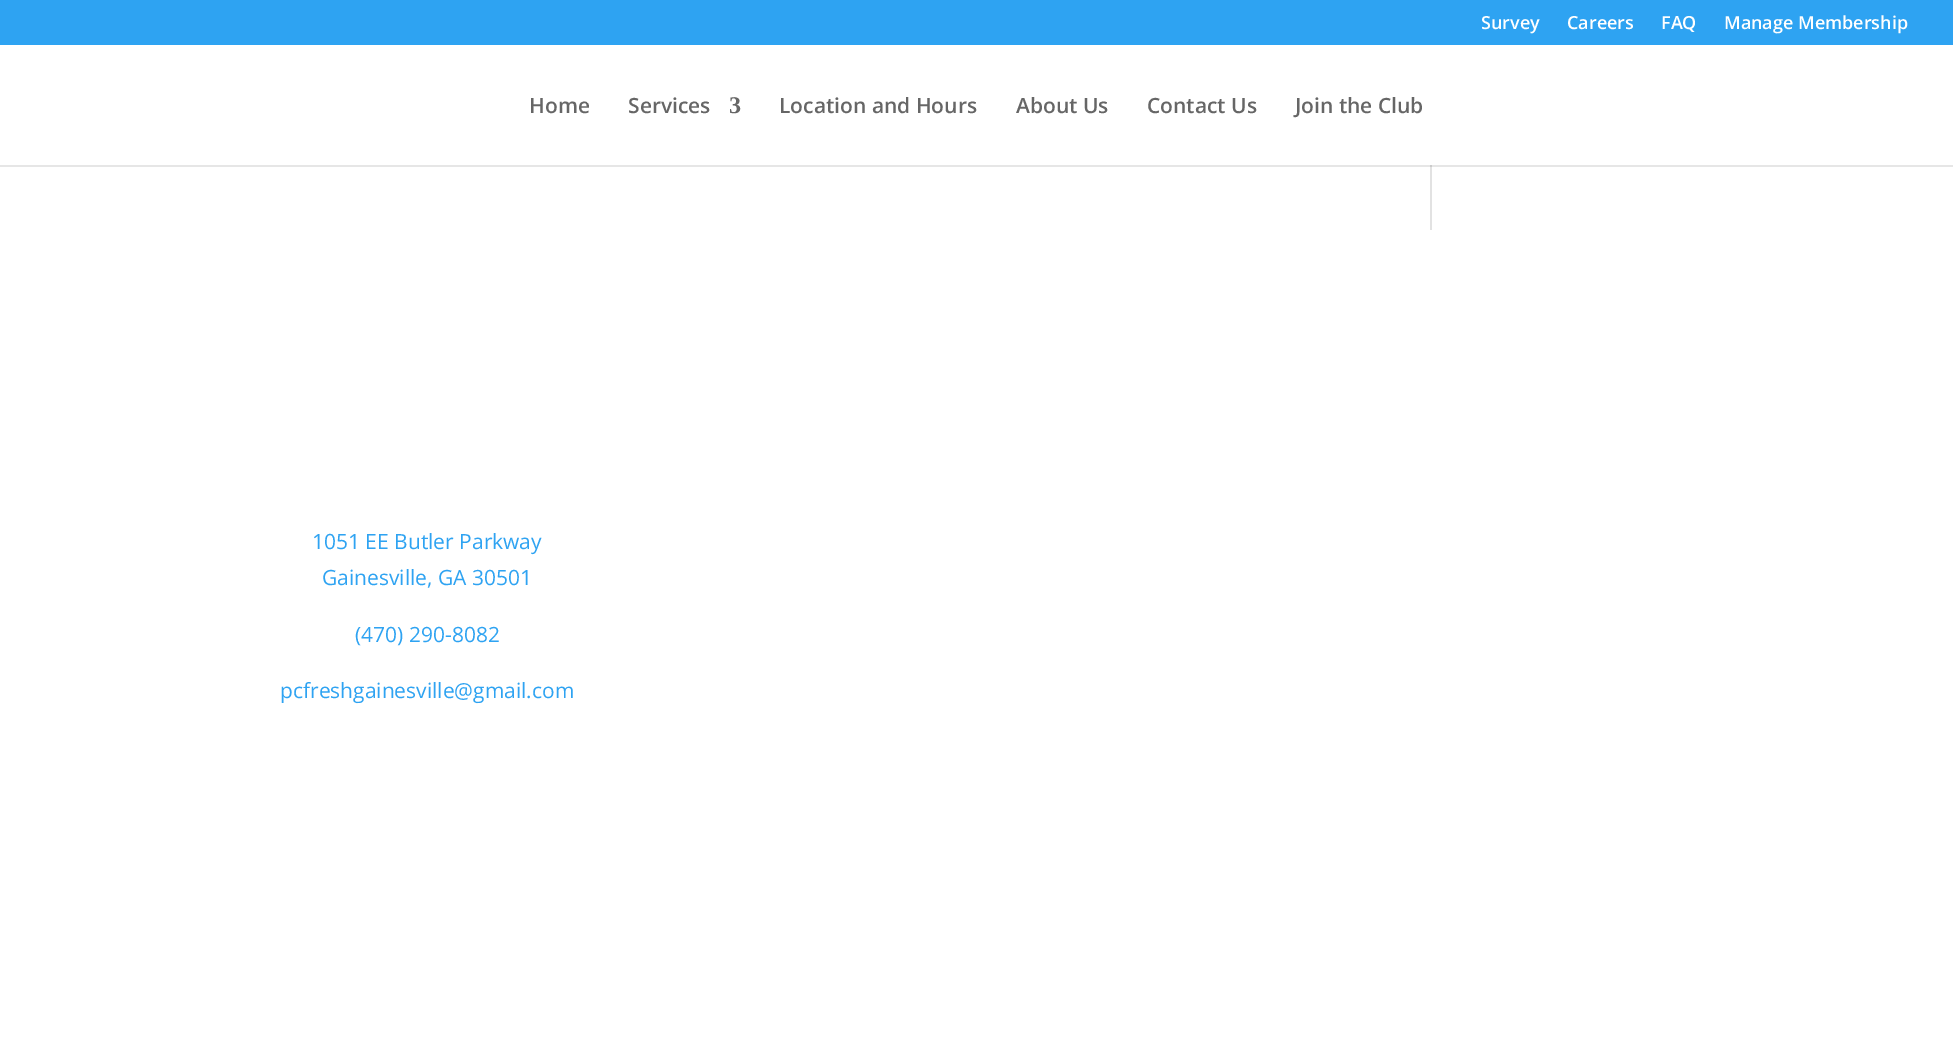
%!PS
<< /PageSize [1953 1060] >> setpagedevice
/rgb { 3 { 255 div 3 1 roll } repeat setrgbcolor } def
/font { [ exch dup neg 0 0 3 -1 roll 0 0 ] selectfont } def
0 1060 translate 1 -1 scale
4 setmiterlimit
255 255 255 rgb
0 0 1953 1060 rectfill
[
  [0 165 1953 2 230 230 230]
  [0 0 1953 45 46 163 242]
  [1430 167 2 63 226 226 226]
  [1430 165 2 2 203 203 203]
] { aload pop rgb rectfill } forall
/OpenSans-SemiBold 18 font
255 255 255 rgb
[
  [(Survey) 1481 29]
  [(Careers) 1567 29]
  [(FAQ) 1661 29]
  [(Manage Membership) 1724 29]
] { aload pop moveto show } forall
/OpenSans-SemiBold 21 font
102 102 102 rgb
529 113 moveto (Home) show
628 113 moveto (Services) show
/LiberationSerif-Bold 24 font
729 113 moveto (3) show
/OpenSans-SemiBold 21 font
[
  [(Location and Hours) 779 113]
  [(About Us) 1016 113]
  [(Contact Us) 1147 113]
  [(Join the Club) 1295 113]
] { aload pop moveto show } forall
/OpenSans-Regular 21 font
46 163 242 rgb
[
  [(1051 EE Butler Parkway) 312 549]
  [(Gainesville, GA 30501) 322 585]
  [(\(470\) 290-8082) 355 642]
  [(pcfreshgainesville@gmail.com) 280 698]
] { aload pop moveto show } forall
showpage
